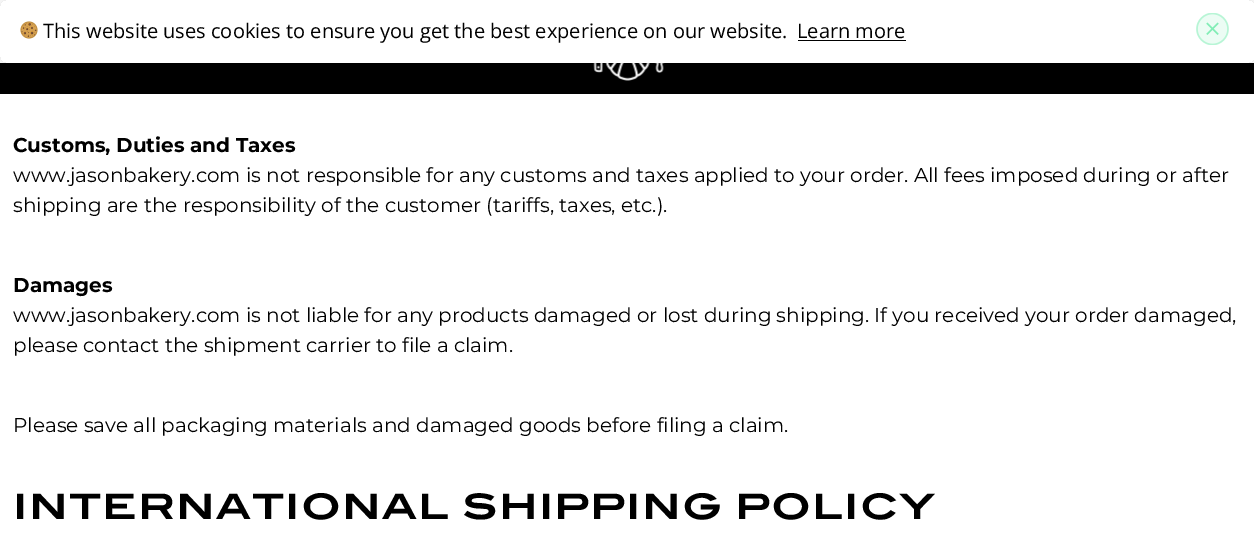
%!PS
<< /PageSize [1254 537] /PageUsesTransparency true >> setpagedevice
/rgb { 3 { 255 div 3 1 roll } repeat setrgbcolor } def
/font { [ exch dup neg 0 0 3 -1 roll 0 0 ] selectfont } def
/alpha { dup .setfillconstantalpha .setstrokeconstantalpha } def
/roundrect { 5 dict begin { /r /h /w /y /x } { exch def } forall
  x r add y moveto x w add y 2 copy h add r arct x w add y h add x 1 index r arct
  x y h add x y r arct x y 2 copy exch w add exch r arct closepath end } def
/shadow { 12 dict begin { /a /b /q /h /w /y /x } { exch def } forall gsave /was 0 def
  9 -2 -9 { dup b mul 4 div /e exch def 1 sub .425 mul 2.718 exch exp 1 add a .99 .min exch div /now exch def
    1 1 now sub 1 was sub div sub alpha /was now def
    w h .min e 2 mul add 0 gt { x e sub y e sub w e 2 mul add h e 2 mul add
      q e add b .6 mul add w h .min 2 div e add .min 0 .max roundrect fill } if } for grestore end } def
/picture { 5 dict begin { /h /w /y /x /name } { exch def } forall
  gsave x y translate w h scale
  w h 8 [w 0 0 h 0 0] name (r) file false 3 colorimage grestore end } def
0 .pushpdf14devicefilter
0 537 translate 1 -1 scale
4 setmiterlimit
255 255 255 rgb
0 0 1254 537 rectfill
0 0 0 rgb
0 63 1254 31 rectfill
(img/3.rgb) 593 63 72 18 picture
gsave
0 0 moveto 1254 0 lineto 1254 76 lineto 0 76 lineto closepath 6 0 moveto 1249 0 lineto 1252.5 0 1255 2.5 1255 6 curveto 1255 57 lineto 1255 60.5 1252.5 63 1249 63 curveto 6 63 lineto 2.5 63 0 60.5 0 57 curveto 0 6 lineto 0 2.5 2.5 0 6 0 curveto closepath eoclip newpath
0 0 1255 63 6 4 0.12 shadow
grestore
(img/1.rgb) 20 21 18 18 picture
798 40 108 1 rectfill
(img/2.rgb) 1196 13 33 32 picture
/OpenSans-Regular 20 font
43 38 moveto (This website uses cookies to ensure you get the best experience on our website.) show
797 38 moveto (Learn more) show
/Montserrat-Bold 20 font
13 152 moveto (Customs, Duties and Taxes) show
/Montserrat-Regular 20 font
13 182 moveto (www.jasonbakery.com is not responsible for any customs and taxes applied to your order. All fees imposed during or after) show
13 212 moveto (shipping are the responsibility of the customer \(tariffs, taxes, etc.\).) show
/Montserrat-Bold 20 font
13 292 moveto (Damages) show
/Montserrat-Regular 20 font
[
  [(www.jasonbakery.com is not liable for any products damaged or lost during shipping. If you received your order damaged,) 13 322]
  [(please contact the shipment carrier to file a claim.) 13 352]
  [(Please save all packaging materials and damaged goods before filing a claim.) 13 432]
] { aload pop moveto show } forall
/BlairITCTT-Bold 35 font
13 519 moveto 1.25 0 (INTERNATIONAL SHIPPING POLICY) ashow
.poppdf14devicefilter showpage
